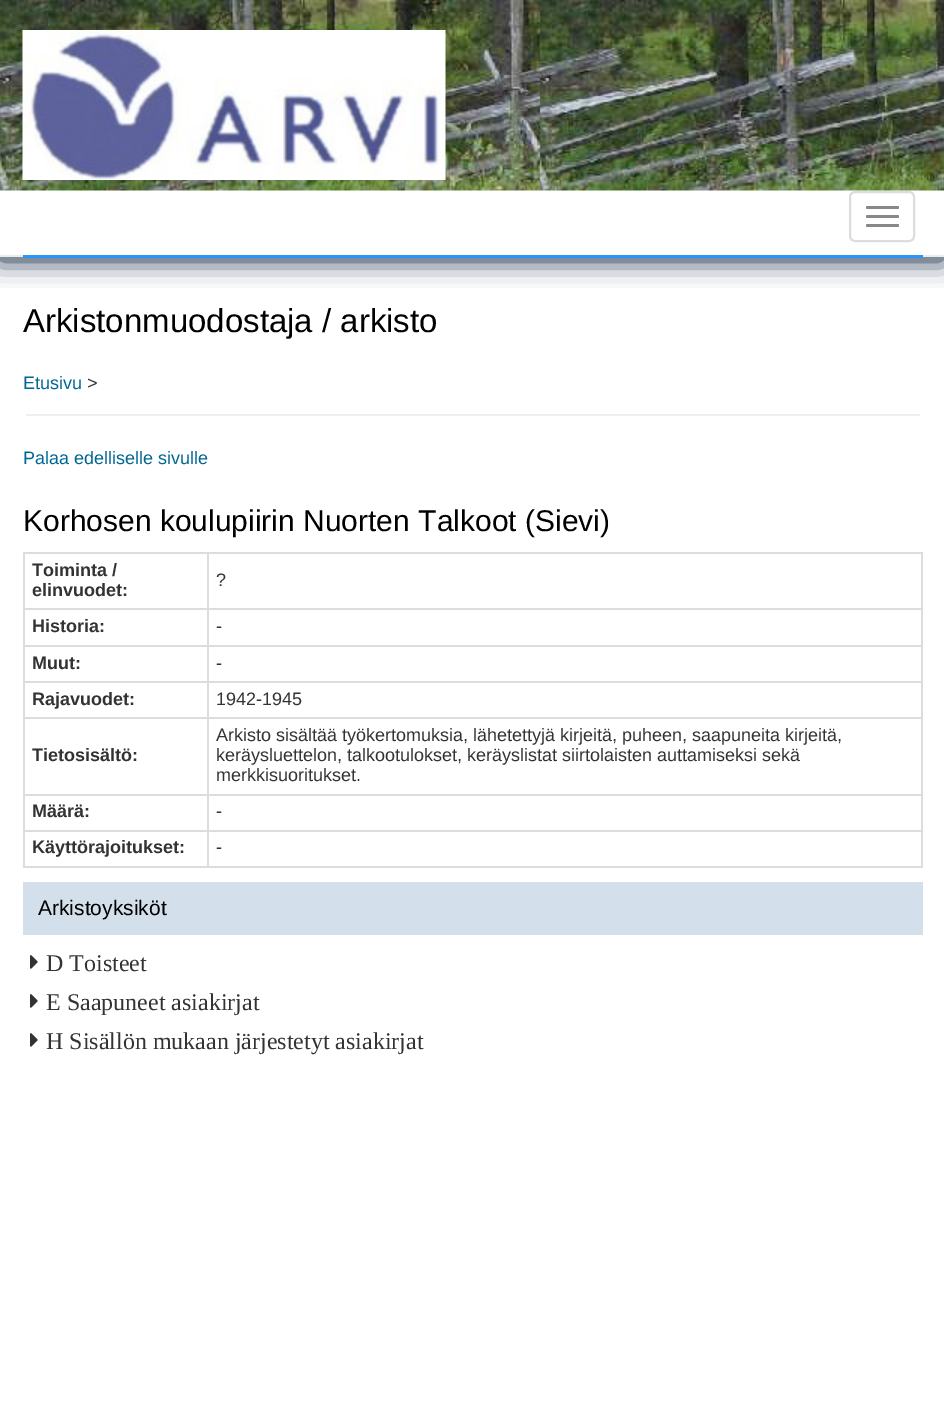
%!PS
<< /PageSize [944 1409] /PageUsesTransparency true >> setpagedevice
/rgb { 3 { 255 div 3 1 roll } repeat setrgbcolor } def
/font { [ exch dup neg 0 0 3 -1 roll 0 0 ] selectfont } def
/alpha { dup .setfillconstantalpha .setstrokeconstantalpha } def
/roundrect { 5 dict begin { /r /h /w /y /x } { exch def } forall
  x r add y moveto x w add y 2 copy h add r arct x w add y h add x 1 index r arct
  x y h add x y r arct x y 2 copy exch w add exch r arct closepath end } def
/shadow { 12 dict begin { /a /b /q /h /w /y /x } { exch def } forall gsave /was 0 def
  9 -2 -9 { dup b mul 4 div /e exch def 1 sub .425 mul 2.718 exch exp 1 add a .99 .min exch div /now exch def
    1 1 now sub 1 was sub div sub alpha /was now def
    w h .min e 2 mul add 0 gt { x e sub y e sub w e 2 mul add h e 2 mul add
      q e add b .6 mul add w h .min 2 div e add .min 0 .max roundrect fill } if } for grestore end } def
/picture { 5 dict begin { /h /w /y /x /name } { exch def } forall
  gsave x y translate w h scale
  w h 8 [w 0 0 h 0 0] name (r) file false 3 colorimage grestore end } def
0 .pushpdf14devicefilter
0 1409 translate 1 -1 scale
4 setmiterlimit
255 255 255 rgb
0 0 944 1409 rectfill
gsave
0 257 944 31 rectclip
2 23 54 rgb
-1 3 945 257 0 13.5 1 shadow
grestore
(img/1.rgb) 0 0 944 191 picture
235 235 235 rgb
0 255 944 2 rectfill
(img/2.rgb) 22 30 424 150 picture
43 150 250 rgb
23 255 900 3 rectfill
221 221 221 rgb
2 setlinewidth
850 192 64 49 5 roundrect stroke
136 136 136 rgb
866 206 33 3 1.5 roundrect fill
866 215 33 3 1.5 roundrect fill
866 224 33 3 1.5 roundrect fill
[
  [26 414 894 2 238 238 238]
  [23 552 900 2 221 221 221]
  [921 552 2 315 221 221 221]
  [23 866 900 2 221 221 221]
  [23 552 2 315 221 221 221]
  [207 608 716 2 221 221 221]
  [207 645 716 2 221 221 221]
  [207 681 716 2 221 221 221]
  [207 717 716 2 221 221 221]
  [207 794 716 2 221 221 221]
  [207 830 716 2 221 221 221]
  [207 830 2 37 221 221 221]
  [23 830 186 2 221 221 221]
  [207 794 2 37 221 221 221]
  [23 794 186 2 221 221 221]
  [207 717 2 78 221 221 221]
  [23 717 186 2 221 221 221]
  [207 681 2 38 221 221 221]
  [23 681 186 2 221 221 221]
  [207 645 2 38 221 221 221]
  [23 645 186 2 221 221 221]
  [207 608 2 39 221 221 221]
  [23 608 186 2 221 221 221]
  [207 552 2 57 221 221 221]
  [23 882 900 53 211 224 235]
] { aload pop rgb rectfill } forall
(img/3.rgb) 30 955 8 14 picture
(img/3.rgb) 30 994 8 14 picture
(img/3.rgb) 30 1033 8 14 picture
/LiberationSans-Regular 33 font
0 0 0 rgb
23 332 moveto (Arkistonmuodostaja / arkisto) show
/LiberationSans-Regular 18 font
0 102 148 rgb
23 389 moveto (Etusivu) show
51 51 51 rgb
87 389 moveto (>) show
0 102 148 rgb
23 464 moveto (Palaa edelliselle sivulle) show
/LiberationSans-Regular 30 font
0 0 0 rgb
23 531 moveto (Korhosen koulupiirin Nuorten Talkoot \(Sievi\)) show
/LiberationSans-Bold 18 font
51 51 51 rgb
32 576 moveto (Toiminta /) show
32 596 moveto (elinvuodet:) show
/LiberationSans-Regular 18 font
216 586 moveto (?) show
/LiberationSans-Bold 18 font
32 632 moveto (Historia:) show
/LiberationSans-Regular 18 font
216 632 moveto (-) show
/LiberationSans-Bold 18 font
32 669 moveto (Muut:) show
/LiberationSans-Regular 18 font
216 669 moveto (-) show
/LiberationSans-Bold 18 font
32 705 moveto (Rajavuodet:) show
/LiberationSans-Regular 18 font
216 705 moveto (1942-1945) show
/LiberationSans-Bold 18 font
32 761 moveto (Tietosisältö:) show
/LiberationSans-Regular 18 font
[
  [(Arkisto sisältää työkertomuksia, lähetettyjä kirjeitä, puheen, saapuneita kirjeitä,) 216 741]
  [(keräysluettelon, talkootulokset, keräyslistat siirtolaisten auttamiseksi sekä) 216 761]
  [(merkkisuoritukset.) 216 781]
] { aload pop moveto show } forall
/LiberationSans-Bold 18 font
32 817 moveto (Määrä:) show
/LiberationSans-Regular 18 font
216 817 moveto (-) show
/LiberationSans-Bold 18 font
32 853 moveto (Käyttörajoitukset:) show
/LiberationSans-Regular 18 font
216 853 moveto (-) show
/LiberationSans-Regular 21 font
0 0 0 rgb
38 915 moveto (Arkistoyksiköt) show
/LiberationSerif-Regular 24 font
51 51 51 rgb
[
  [(D Toisteet) 46 971]
  [(E Saapuneet asiakirjat) 46 1010]
  [(H Sisällön mukaan järjestetyt asiakirjat) 46 1049]
] { aload pop moveto show } forall
.poppdf14devicefilter showpage
